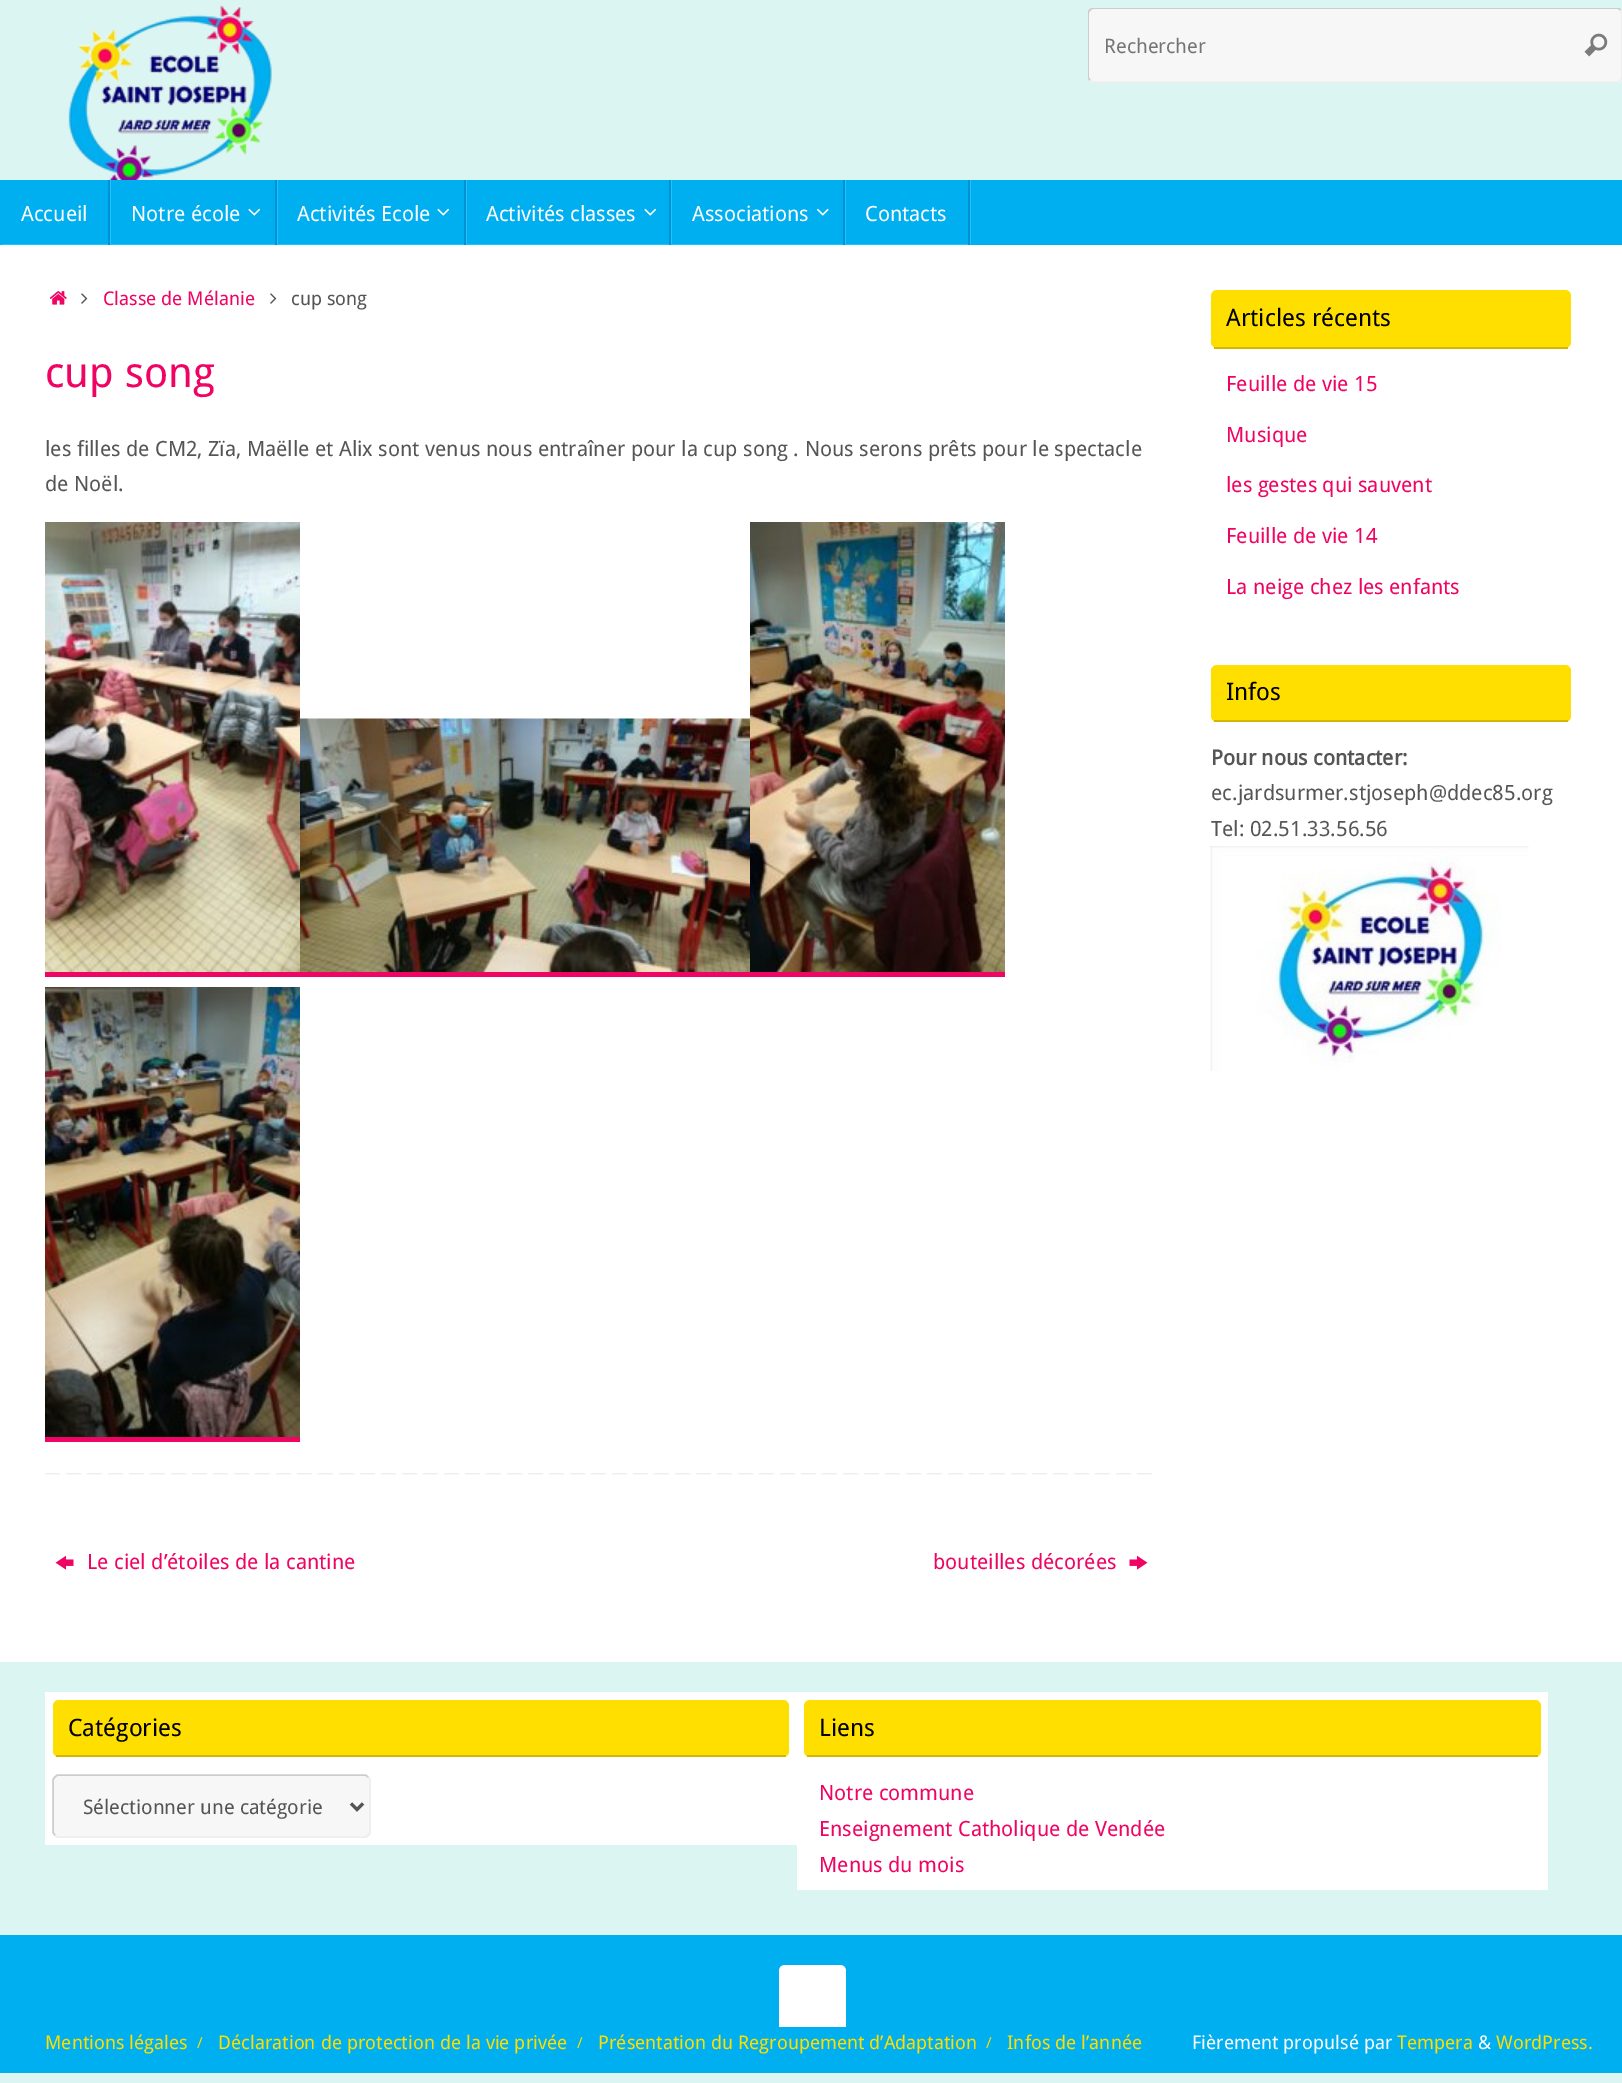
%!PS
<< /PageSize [1622 2083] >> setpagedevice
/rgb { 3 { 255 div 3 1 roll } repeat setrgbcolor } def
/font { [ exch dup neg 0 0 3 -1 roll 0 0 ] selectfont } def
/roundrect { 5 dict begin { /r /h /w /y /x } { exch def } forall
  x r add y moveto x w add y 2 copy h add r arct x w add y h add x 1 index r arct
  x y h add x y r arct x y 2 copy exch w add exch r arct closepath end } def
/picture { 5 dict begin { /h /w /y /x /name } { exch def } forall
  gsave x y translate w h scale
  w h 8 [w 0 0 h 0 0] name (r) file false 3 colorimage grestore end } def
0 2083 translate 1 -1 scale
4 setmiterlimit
219 245 243 rgb
0 0 1622 2083 rectfill
(img/1.rgb) 68 5 204 175 picture
247 247 247 rgb
1088 8 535 75 6 roundrect fill
238 238 238 rgb
1.5 setlinewidth
1620.5 10 moveto 1621.5 11 1622 12 1622 13.5 curveto 1622 76.5 lineto 1622 78 1621.5 79 1620.5 80 curveto 1619.5 81 1618.5 82 1617 82 curveto 1093.5 82 lineto 1092 82 1091 81 1090 80 curveto stroke
gsave
1088 8 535 75 rectclip
204 204 204 rgb
1090 80 moveto 1089 79 1088 78 1088 76.5 curveto 1088 13.5 lineto 1088 12 1089 11 1090 10 curveto 1091 9 1092 8 1093.5 8 curveto 1617 8 lineto 1618.5 8 1619.5 9 1620.5 10 curveto stroke
grestore
(img/2.rgb) 1584 33 24 24 picture
0 175 240 rgb
0 180 1622 65 rectfill
24 199 255 rgb
2 244 moveto 2 245 lineto 111 245 lineto 111 180 lineto 110 180 lineto 110 244 lineto closepath fill
0 145 210 rgb
108 180 2 65 rectfill
24 199 255 rgb
111 244 moveto 111 245 lineto 278 245 lineto 278 180 lineto 276 180 lineto 276 244 lineto closepath fill
0 145 210 rgb
275 180 2 65 rectfill
(img/3.rgb) 248 208 13 8 picture
24 199 255 rgb
278 244 moveto 278 245 lineto 467 245 lineto 467 180 lineto 465 180 lineto 465 244 lineto closepath fill
0 145 210 rgb
464 180 2 65 rectfill
(img/3.rgb) 437 208 13 8 picture
24 199 255 rgb
467 244 moveto 467 245 lineto 672 245 lineto 672 180 lineto 670 180 lineto 670 244 lineto closepath fill
0 145 210 rgb
669 180 2 65 rectfill
(img/3.rgb) 644 208 13 8 picture
24 199 255 rgb
672 244 moveto 672 245 lineto 846 245 lineto 846 180 lineto 844 180 lineto 844 244 lineto closepath fill
0 145 210 rgb
843 180 2 65 rectfill
(img/4.rgb) 817 208 12 8 picture
24 199 255 rgb
846 244 moveto 846 245 lineto 971 245 lineto 971 180 lineto 969 180 lineto 969 244 lineto closepath fill
0 145 210 rgb
968 180 2 65 rectfill
255 255 255 rgb
0 245 1622 1417 rectfill
(img/5.rgb) 49 291 18 14 picture
(img/6.rgb) 81 293 7 11 picture
(img/6.rgb) 270 293 7 11 picture
(img/7.rgb) 45 522 255 450 picture
(img/8.rgb) 300 718 450 254 picture
(img/9.rgb) 750 522 255 450 picture
239 6 101 rgb
45 972 960 5 rectfill
(img/10.rgb) 45 987 255 450 picture
45 1437 255 5 rectfill
(img/11.rgb) 45 1473 1107 2 picture
(img/12.rgb) 55 1555 19 15 picture
(img/13.rgb) 1129 1555 19 15 picture
254 223 0 rgb
1211 290 360 58 6 roundrect fill
214 183 0 rgb
1214 347 354 2 rectfill
254 223 0 rgb
1211 665 360 57 6 roundrect fill
214 183 0 rgb
1214 720 354 2 rectfill
(img/14.rgb) 1210 846 319 225 picture
255 255 255 rgb
45 1692 752 153 rectfill
254 223 0 rgb
53 1700 736 57 6 roundrect fill
214 183 0 rgb
56 1755 730 2 rectfill
247 247 247 rgb
53 1775 318 63 6 roundrect fill
238 238 238 rgb
368 1777 moveto 369 1778 370 1779 370 1780.5 curveto 370 1831.5 lineto 370 1833 369 1834 368 1835 curveto 367 1836 366 1837 364.5 1837 curveto 58.5 1837 lineto 57 1837 56 1836 55 1835 curveto stroke
204 204 204 rgb
55 1835 moveto 54 1834 53 1833 53 1831.5 curveto 53 1780.5 lineto 53 1779 54 1778 55 1777 curveto 56 1776 57 1775 58.5 1775 curveto 364.5 1775 lineto 366 1775 367 1776 368 1777 curveto stroke
85 85 85 rgb
3 setlinewidth
351 1803.5 moveto 357 1809.5 lineto 363 1803.5 lineto stroke
255 255 255 rgb
797 1692 751 198 rectfill
254 223 0 rgb
804 1700 737 57 6 roundrect fill
214 183 0 rgb
807 1755 731 2 rectfill
0 175 240 rgb
0 1935 1622 138 rectfill
255 255 255 rgb
785 1965 moveto 840 1965 lineto 843.5 1965 846 1967.5 846 1971 curveto 846 2027 lineto 779 2027 lineto 779 1971 lineto 779 1967.5 781.5 1965 785 1965 curveto closepath fill
/DroidSans-Regular 20 font
117 117 117 rgb
1104 53 moveto (Rechercher) show
/DroidSans-Regular 21 font
255 255 255 rgb
[
  [(Accueil) 21 221]
  [(Notre école) 131 221]
  [(Activités Ecole) 297 221]
  [(Activités classes) 486 221]
  [(Associations) 692 221]
  [(Contacts) 865 221]
] { aload pop moveto show } forall
/DroidSans-Regular 18.9 font
239 3 99 rgb
103 305 moveto (Classe de Mélanie) show
85 85 85 rgb
291 305 moveto (cup song) show
/DroidSans-Regular 42 font
239 3 99 rgb
45 387 moveto (cup song) show
/DroidSans-Regular 21 font
85 85 85 rgb
45 456 moveto (les filles de CM2, Zïa, Maëlle et Alix sont venus nous entraîner pour la cup song . Nous serons prêts pour le spectacle) show
45 491 moveto (de Noël.) show
239 3 99 rgb
87 1569 moveto (Le ciel d’étoiles de la cantine) show
933 1569 moveto (bouteilles décorées) show
/DroidSans-Regular 24 font
0 0 0 rgb
1226 326 moveto (Articles récents) show
/DroidSans-Regular 21 font
239 3 99 rgb
[
  [(Feuille de vie 15) 1226 391]
  [(Musique) 1226 442]
  [(les gestes qui sauvent) 1226 492]
  [(Feuille de vie 14) 1226 543]
  [(La neige chez les enfants) 1226 594]
] { aload pop moveto show } forall
/DroidSans-Regular 24 font
0 0 0 rgb
1226 700 moveto (Infos) show
/DroidSans-Bold 21 font
85 85 85 rgb
1211 765 moveto (Pour nous contacter:) show
/DroidSans-Regular 21 font
1211 800 moveto (ec.jardsurmer.stjoseph@ddec85.org) show
1211 836 moveto (Tel: 02.51.33.56.56) show
/DroidSans-Regular 24 font
0 0 0 rgb
68 1736 moveto (Catégories) show
/DroidSans-Regular 20 font
85 85 85 rgb
83 1814 moveto (Sélectionner une catégorie) show
/DroidSans-Regular 24 font
0 0 0 rgb
819 1736 moveto (Liens) show
/DroidSans-Regular 21 font
239 3 99 rgb
[
  [(Notre commune) 819 1800]
  [(Enseignement Catholique de Vendée) 819 1836]
  [(Menus du mois) 819 1872]
] { aload pop moveto show } forall
/DroidSans-Regular 18.9 font
254 223 0 rgb
45 2049 moveto (Mentions légales) show
/DroidSans-Regular 15 font
197 2048 moveto (/) show
/DroidSans-Regular 18.9 font
218 2049 moveto (Déclaration de protection de la vie privée) show
/DroidSans-Regular 15 font
577 2048 moveto (/) show
/DroidSans-Regular 18.9 font
598 2049 moveto (Présentation du Regroupement d’Adaptation) show
/DroidSans-Regular 15 font
986 2048 moveto (/) show
/DroidSans-Regular 18.9 font
1007 2049 moveto (Infos de l’année) show
255 255 255 rgb
1192 2049 moveto (Fièrement propulsé par) show
254 223 0 rgb
1397 2049 moveto (Tempera) show
255 255 255 rgb
1478 2049 moveto (&) show
254 223 0 rgb
1496 2049 moveto (WordPress.) show
showpage
